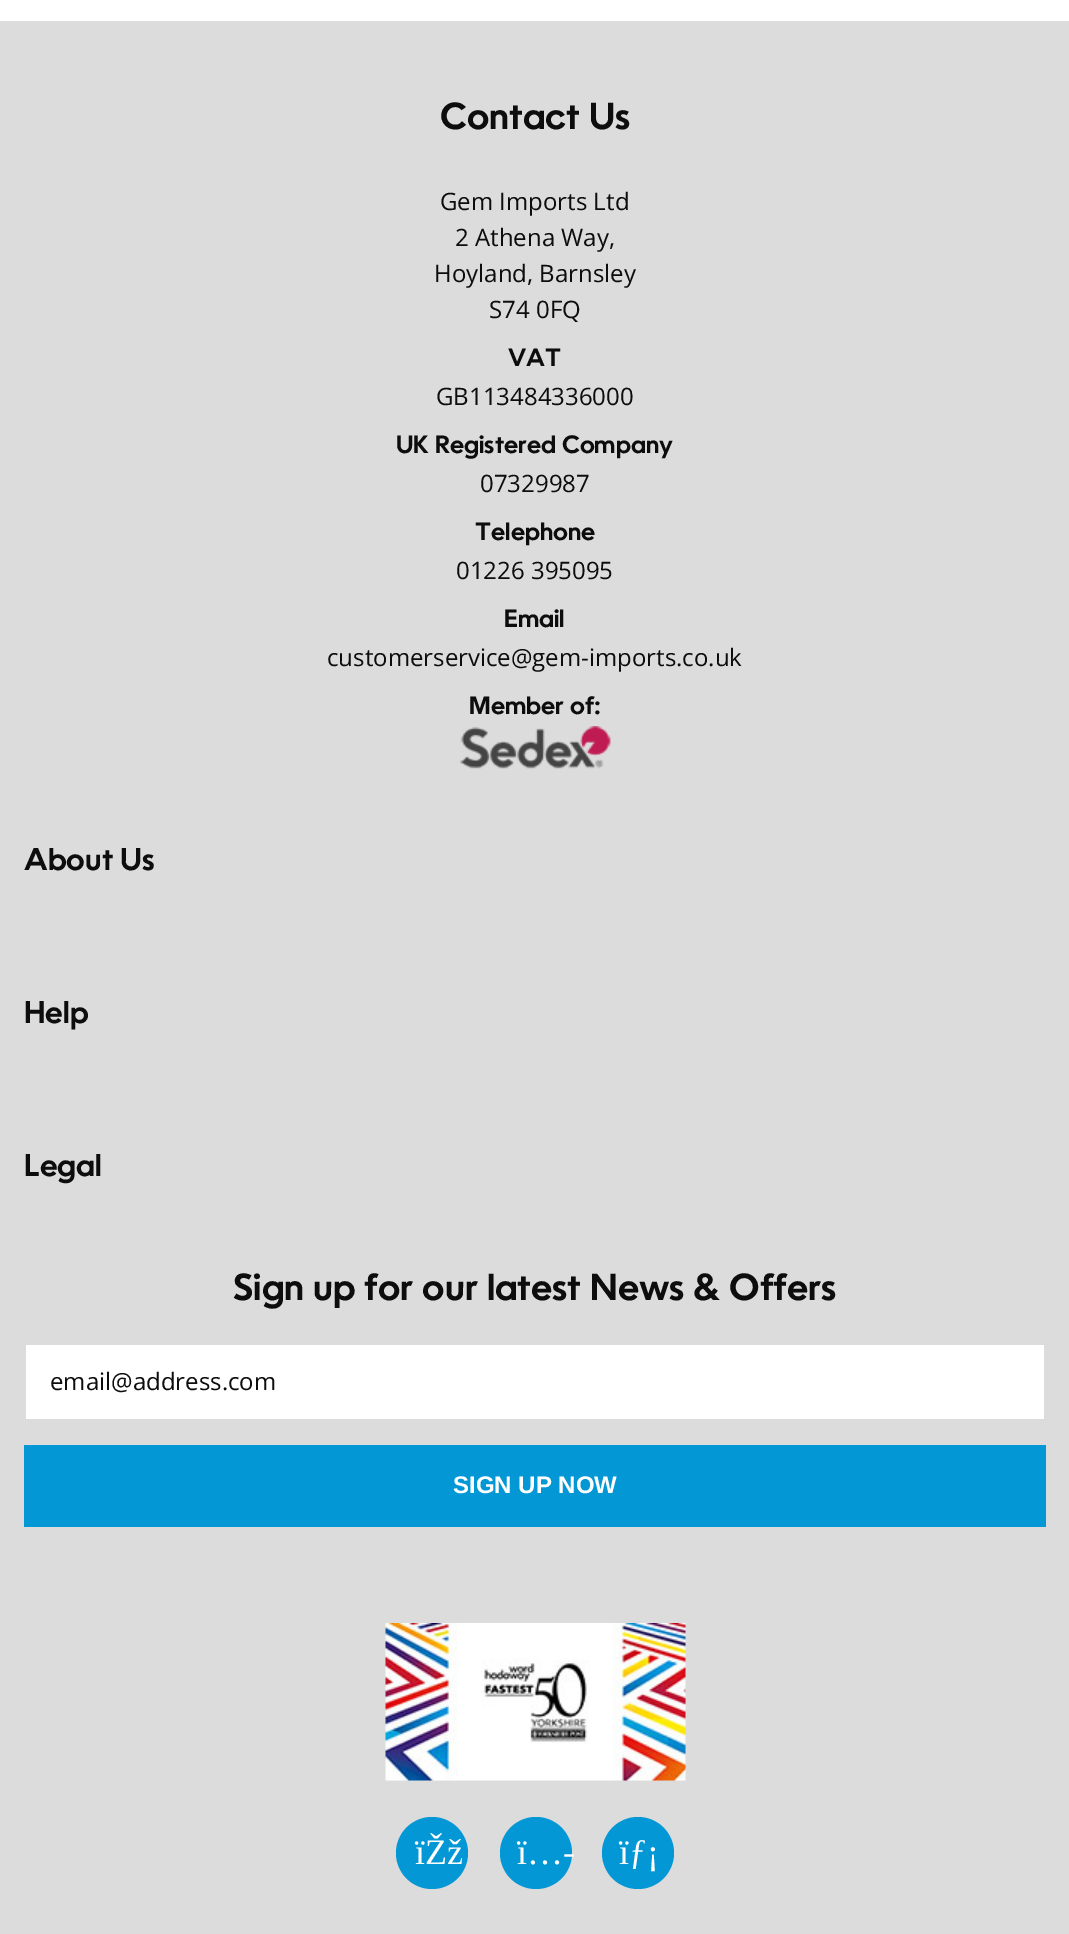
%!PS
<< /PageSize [1069 1934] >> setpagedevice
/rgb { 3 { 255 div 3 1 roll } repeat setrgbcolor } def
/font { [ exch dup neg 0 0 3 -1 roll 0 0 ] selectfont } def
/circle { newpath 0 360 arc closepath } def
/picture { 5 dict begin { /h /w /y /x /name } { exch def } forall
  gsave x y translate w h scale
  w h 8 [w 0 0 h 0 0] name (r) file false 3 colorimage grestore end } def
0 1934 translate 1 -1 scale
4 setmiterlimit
255 255 255 rgb
0 0 1069 1934 rectfill
220 220 220 rgb
0 21 1069 1913 rectfill
(img/1.rgb) 460 726 151 43 picture
255 255 255 rgb
26 1345 1018 74 rectfill
3 151 214 rgb
24 1445 1022 82 rectfill
(img/2.rgb) 385 1623 301 158 picture
432 1853 36 circle fill
536 1853 36 circle fill
638 1853 36 circle fill
/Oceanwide-SemiBold 36 font
13 13 13 rgb
440 129 moveto (Contact Us) show
/OpenSans-Regular 24 font
[
  [(Gem Imports Ltd) 440 210]
  [(2 Athena Way,) 455 246]
  [(Hoyland, Barnsley) 434 282]
  [(S74 0FQ) 489 318]
] { aload pop moveto show } forall
/Oceanwide-SemiBold 24 font
508 366 moveto (VAT) show
/OpenSans-Regular 24 font
436 405 moveto (GB113484336000) show
/Oceanwide-SemiBold 24 font
396 453 moveto (UK Registered Company) show
/OpenSans-Regular 24 font
480 492 moveto (07329987) show
/Oceanwide-SemiBold 24 font
475 540 moveto (Telephone) show
/OpenSans-Regular 24 font
456 579 moveto (01226 395095) show
/Oceanwide-SemiBold 24 font
504 627 moveto (Email) show
/OpenSans-Regular 24 font
327 666 moveto (customerservice@gem-imports.co.uk) show
/Oceanwide-SemiBold 24 font
469 714 moveto (Member of:) show
/Oceanwide-SemiBold 30 font
[
  [(About Us) 24 870]
  [(Help) 24 1023]
  [(Legal) 24 1176]
] { aload pop moveto show } forall
/Oceanwide-SemiBold 36 font
233 1300 moveto (Sign up for our latest News & Offers) show
/OpenSans-Regular 24 font
50 1390 moveto (email@address.com) show
/LiberationSans-Bold 24 font
255 255 255 rgb
453 1493 moveto (SIGN UP NOW) show
/LiberationSerif-Regular 36 font
[
  [(ïŽž) 415 1864]
  [(ï…-) 517 1864]
  [(ïƒ¡) 619 1864]
] { aload pop moveto show } forall
showpage
